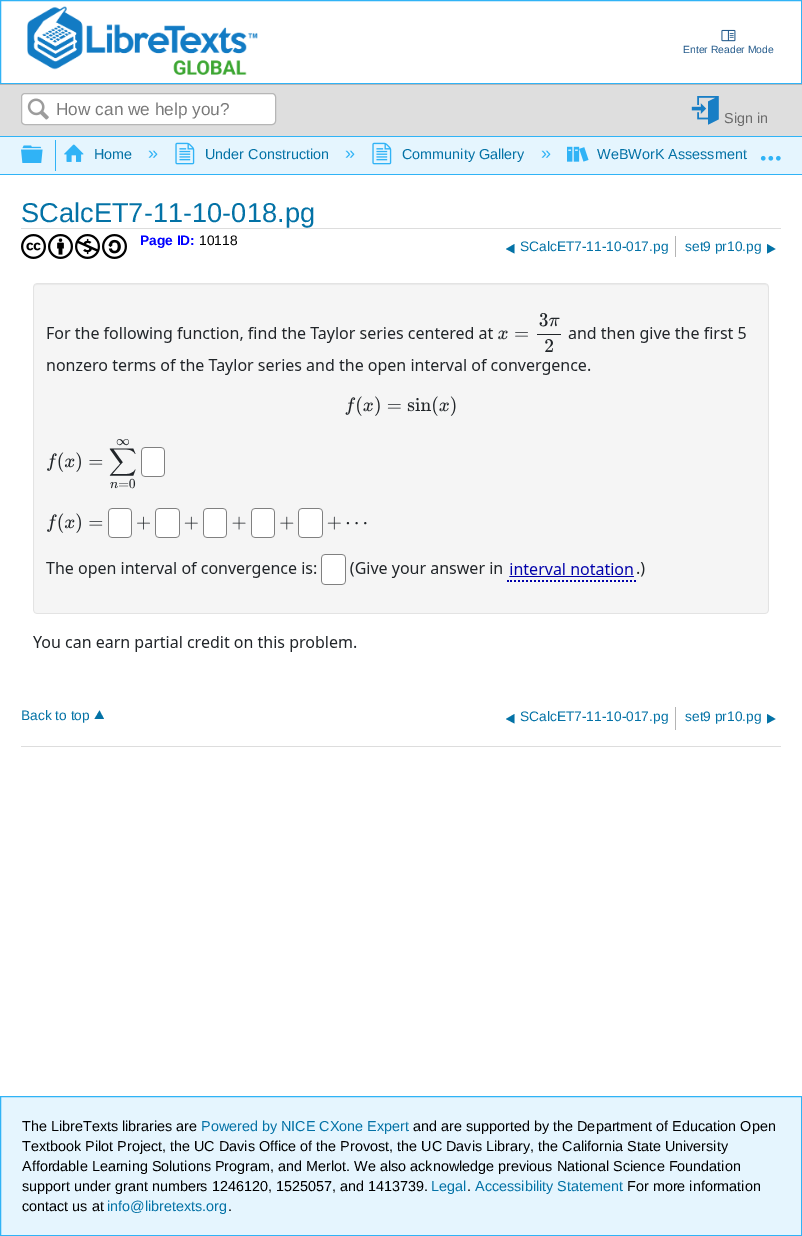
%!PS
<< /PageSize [802 1236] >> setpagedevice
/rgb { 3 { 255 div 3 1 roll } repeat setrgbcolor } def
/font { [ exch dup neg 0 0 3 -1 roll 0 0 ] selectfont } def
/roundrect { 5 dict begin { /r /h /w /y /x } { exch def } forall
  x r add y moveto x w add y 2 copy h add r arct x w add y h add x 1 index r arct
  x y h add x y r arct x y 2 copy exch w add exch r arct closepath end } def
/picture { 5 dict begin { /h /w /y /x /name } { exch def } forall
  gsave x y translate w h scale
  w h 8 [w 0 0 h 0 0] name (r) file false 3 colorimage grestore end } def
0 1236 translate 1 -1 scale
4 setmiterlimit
255 255 255 rgb
0 0 802 1236 rectfill
48 179 246 rgb
0.5 0.5 801 83 rectstroke
(img/1.rgb) 27 6 231 69 picture
(img/2.rgb) 721 29 15 13 picture
222 222 222 rgb
0 85 802 51 rectfill
182 182 182 rgb
0 84 802 1 rectfill
255 255 255 rgb
21.5 93.5 254 31 3.5 roundrect gsave fill grestore
182 182 182 rgb
stroke
(img/3.rgb) 27 98 22 22 picture
(img/4.rgb) 691 96 28 29 picture
[
  [0 137 802 37 229 245 254]
  [0 136 802 1 48 179 246]
  [0 174 802 1 48 179 246]
] { aload pop rgb rectfill } forall
(img/5.rgb) 21 145 22 18 picture
55 140 1 31 rectfill
(img/6.rgb) 64 144 20 18 picture
(img/7.rgb) 175 142 20 23 picture
(img/7.rgb) 372 142 20 23 picture
(img/8.rgb) 567 146 22 16 picture
(img/9.rgb) 760 155 21 6 picture
221 221 221 rgb
21 228 760 1 rectfill
(img/10.rgb) 21 234 25 25 picture
(img/11.rgb) 48 234 25 25 picture
(img/12.rgb) 75 234 25 25 picture
(img/13.rgb) 102 234 25 25 picture
180 180 180 rgb
675 236 1 21 rectfill
3 114 166 rgb
514.5 244 moveto 514.5 253.5 lineto 506 249 lineto closepath fill
767 244 moveto 767 253.5 lineto 775.5 249 lineto closepath fill
(img/14.rgb) 33 283 736 369 picture
221 221 221 rgb
21 746 760 1 rectfill
3 114 166 rgb
94.5 719 moveto 104 719 lineto 99.5 710.5 lineto closepath fill
180 180 180 rgb
675 707 1 23 rectfill
3 114 166 rgb
514.5 714 moveto 514.5 723.5 lineto 506 719 lineto closepath fill
767 714 moveto 767 723.5 lineto 775.5 719 lineto closepath fill
229 245 254 rgb
0.5 1096.5 moveto 801.5 1096.5 lineto 801.5 1235.5 lineto 0.5 1235.5 lineto closepath gsave fill grestore
48 179 246 rgb
stroke
/LiberationSans-Regular 10.4 font
35 90 139 rgb
683 53 moveto (Enter Reader Mode) show
/LiberationSans-Regular 17.25 font
121 121 121 rgb
56 115 moveto (How can we help you?) show
/LiberationSans-Regular 14.4 font
107 107 107 rgb
724 123 moveto (Sign in) show
3 114 166 rgb
94 159 moveto (Home) show
/LiberationSans-Regular 18 font
48 179 246 rgb
148 159 moveto (») show
/LiberationSans-Regular 14.4 font
3 114 166 rgb
205 159 moveto (Under Construction) show
/LiberationSans-Regular 18 font
48 179 246 rgb
345 159 moveto (») show
/LiberationSans-Regular 14.4 font
3 114 166 rgb
402 159 moveto (Community Gallery) show
/LiberationSans-Regular 18 font
48 179 246 rgb
541 159 moveto (») show
/LiberationSans-Regular 14.4 font
3 114 166 rgb
597 159 moveto (WeBWorK Assessment) show
/LiberationSans-Regular 27.25 font
21 222 moveto (SCalcET7-11-10-018.pg) show
/LiberationSans-Bold 13.75 font
0 0 255 rgb
140 245 moveto (Page ID:) show
/LiberationSans-Regular 13.75 font
0 0 0 rgb
199 245 moveto (10118) show
3 114 166 rgb
[
  [(SCalcET7-11-10-017.pg) 520 251]
  [(set9 pr10.pg) 685 251]
  [(Back to top) 21 720]
  [(SCalcET7-11-10-017.pg) 520 721]
  [(set9 pr10.pg) 685 721]
] { aload pop moveto show } forall
/LiberationSans-Regular 14.4 font
0 0 0 rgb
22 1131 moveto (The LibreTexts libraries are) show
3 114 166 rgb
201 1131 moveto (Powered by NICE CXone Expert) show
0 0 0 rgb
[
  [(and are supported by the Department of Education Open) 413 1131]
  [(Textbook Pilot Project, the UC Davis Office of the Provost, the UC Davis Library, the California State University) 22 1151]
  [(Affordable Learning Solutions Program, and Merlot. We also acknowledge previous National Science Foundation) 22 1171]
  [(support under grant numbers 1246120, 1525057, and 1413739.) 22 1191]
] { aload pop moveto show } forall
3 114 166 rgb
431 1191 moveto (Legal) show
0 0 0 rgb
467 1191 moveto (.) show
3 114 166 rgb
475 1191 moveto (Accessibility Statement) show
0 0 0 rgb
627 1191 moveto (For more information) show
22 1211 moveto (contact us at) show
3 114 166 rgb
107 1211 moveto (info@libretexts.org) show
0 0 0 rgb
228 1211 moveto (.) show
showpage
